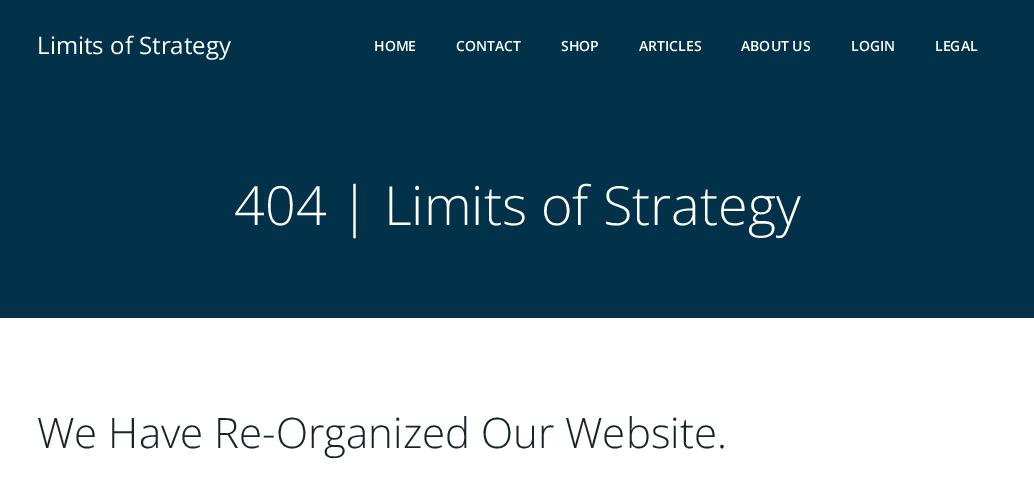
%!PS
<< /PageSize [1034 489] >> setpagedevice
/rgb { 3 { 255 div 3 1 roll } repeat setrgbcolor } def
/font { [ exch dup neg 0 0 3 -1 roll 0 0 ] selectfont } def
0 489 translate 1 -1 scale
4 setmiterlimit
255 255 255 rgb
0 0 1034 489 rectfill
1 50 73 rgb
0 0 1034 318 rectfill
/OpenSans-Regular 24 font
255 255 255 rgb
37 54 moveto (Limits of Strategy) show
/OpenSans-SemiBold 14 font
[
  [(HOME) 374 51]
  [(CONTACT) 456 51]
  [(SHOP) 561 51]
  [(ARTICLES) 639 51]
  [(ABOUT US) 741 51]
  [(LOGIN) 851 51]
  [(LEGAL) 935 51]
] { aload pop moveto show } forall
/OpenSans-Light 54 font
234 225 moveto (404 | Limits of Strategy) show
/OpenSans-Light 42 font
23 37 42 rgb
37 448 moveto (We Have Re-Organized Our Website.) show
showpage
